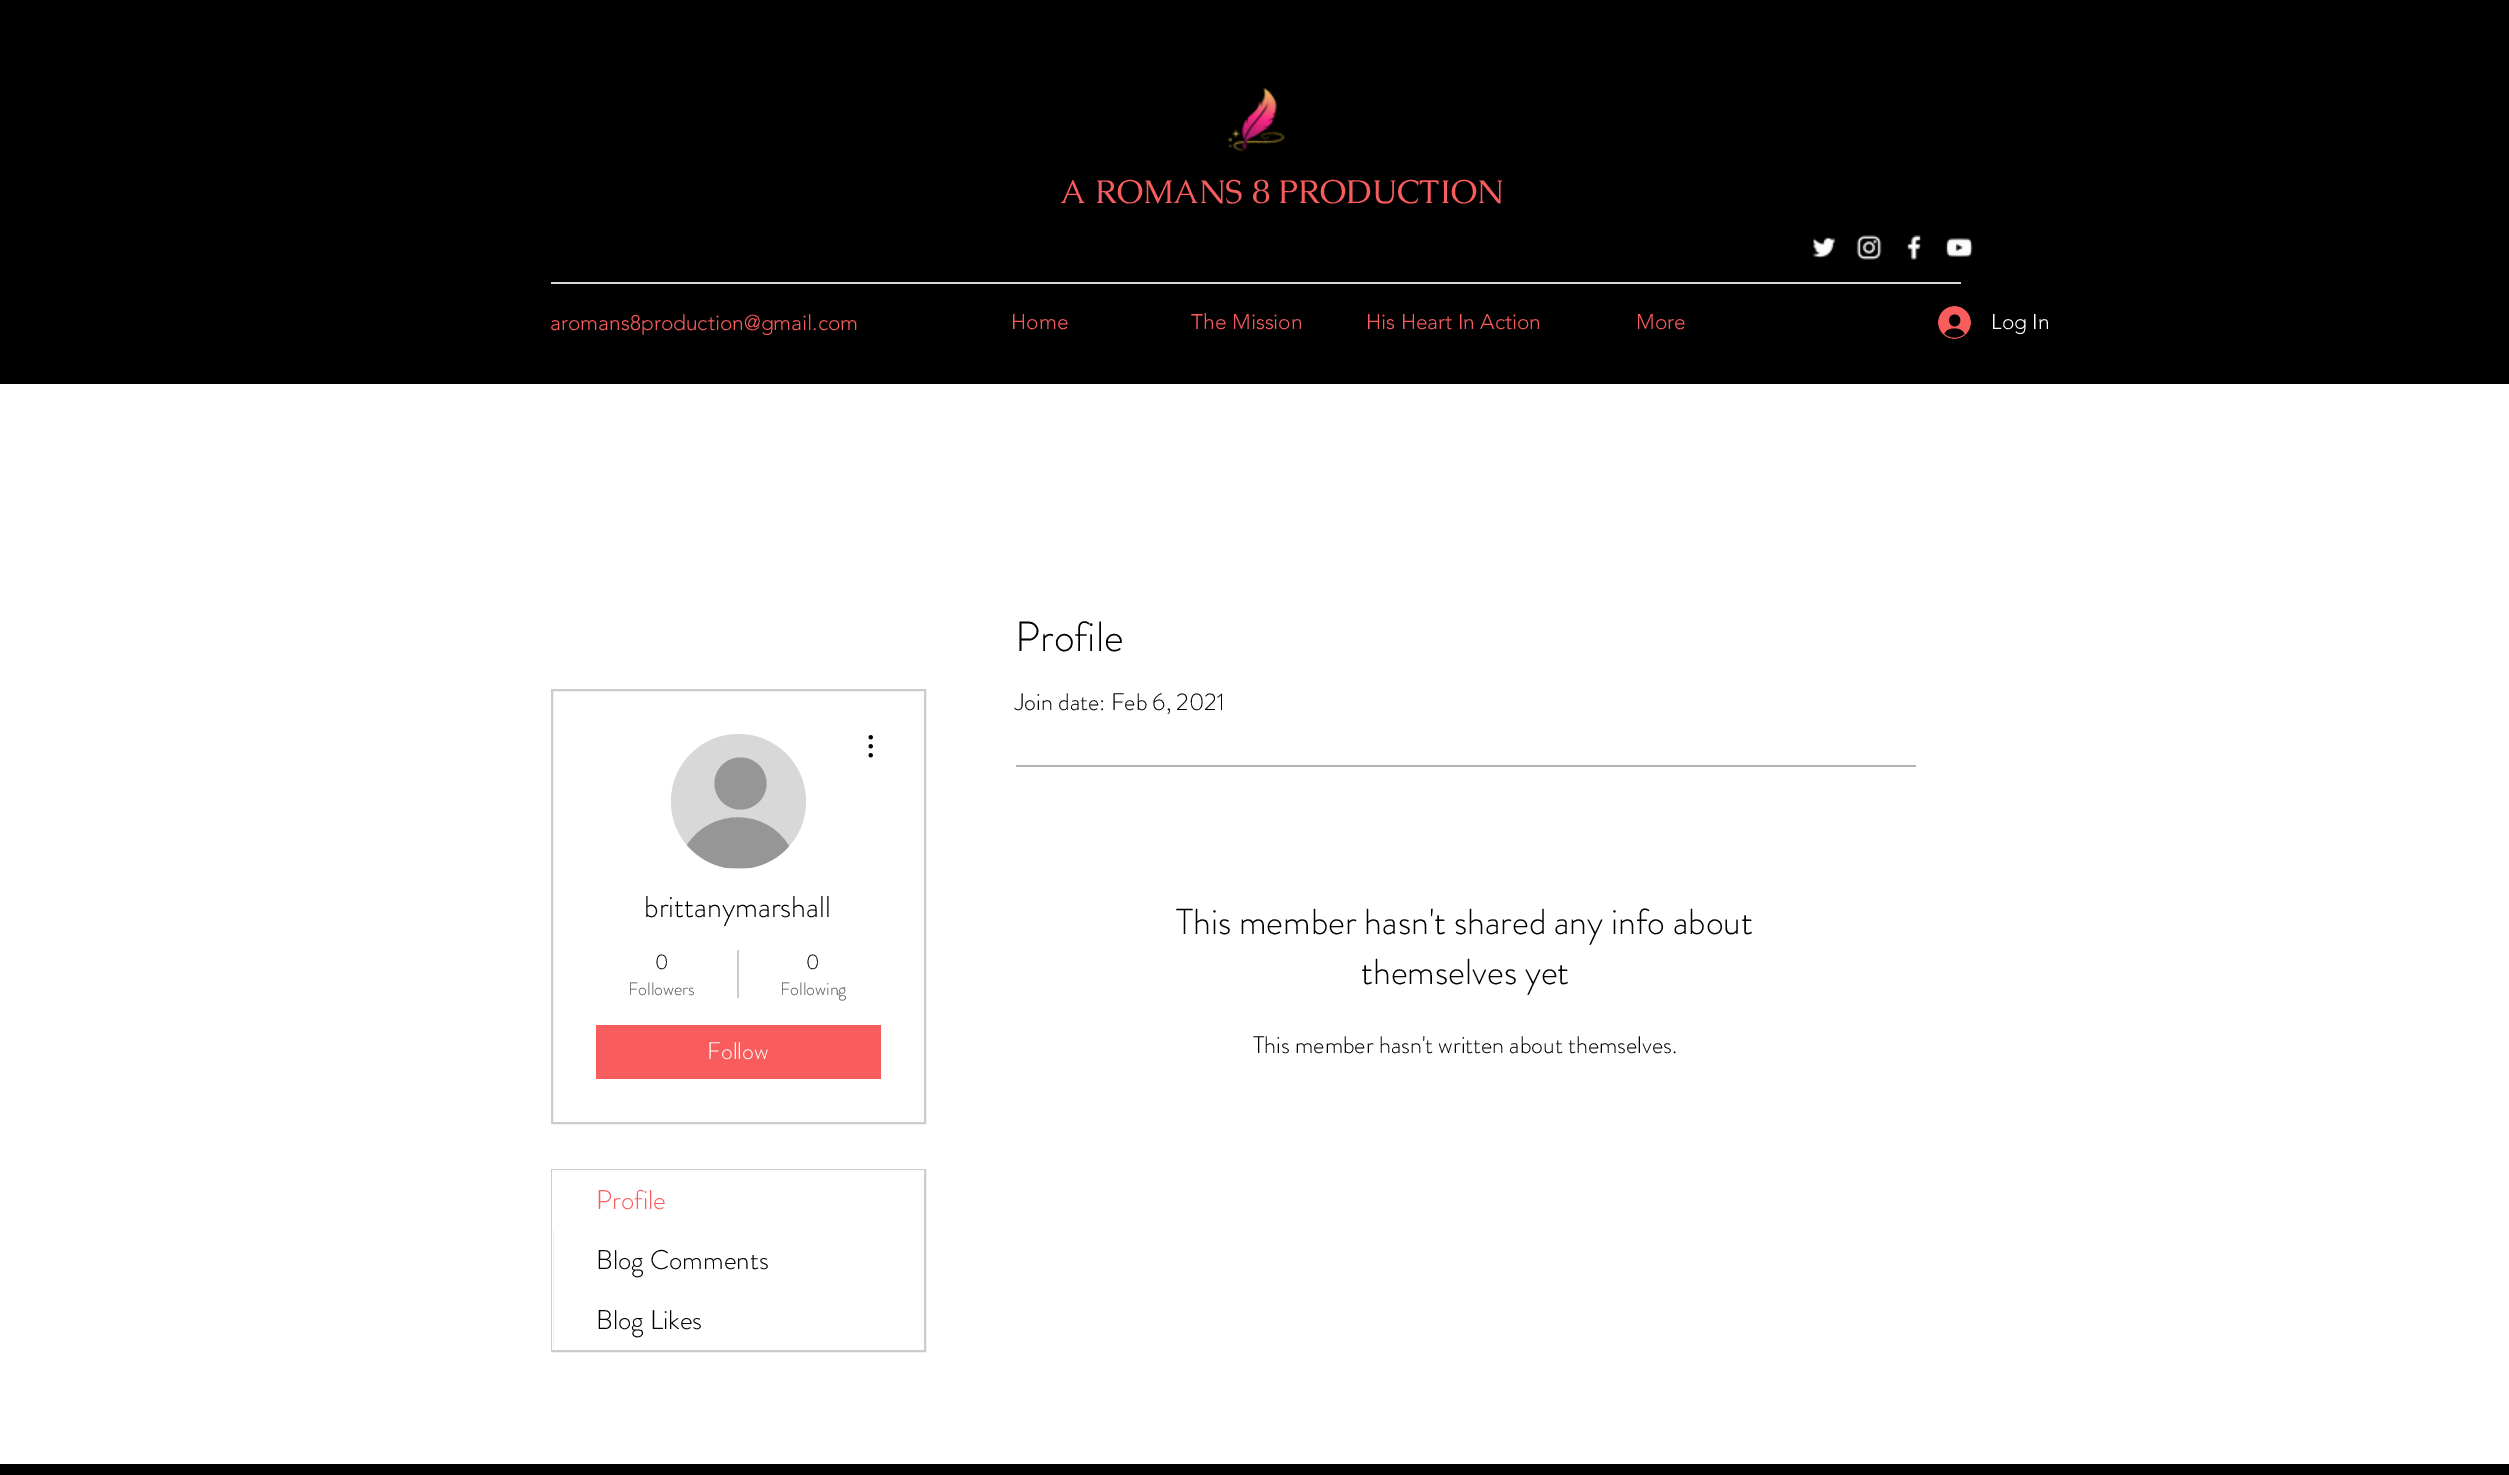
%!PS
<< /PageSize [2509 1475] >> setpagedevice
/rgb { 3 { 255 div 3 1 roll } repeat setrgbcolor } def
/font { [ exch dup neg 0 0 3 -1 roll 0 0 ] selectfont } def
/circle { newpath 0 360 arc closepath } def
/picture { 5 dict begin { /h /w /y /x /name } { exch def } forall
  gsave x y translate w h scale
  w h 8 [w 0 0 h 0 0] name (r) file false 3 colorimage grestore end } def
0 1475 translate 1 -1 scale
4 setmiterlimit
255 255 255 rgb
0 0 2509 1475 rectfill
0 0 0 rgb
0 0 2509 384 rectfill
(img/1.rgb) 1228 88 57 64 picture
(img/2.rgb) 1812 237 24 22 picture
(img/3.rgb) 1856 235 26 25 picture
(img/4.rgb) 1907 235 14 25 picture
(img/5.rgb) 1946 238 27 19 picture
217 217 217 rgb
551 282 1410 2 rectfill
(img/6.rgb) 1938 306 33 33 picture
179 179 179 rgb
1016 765 900 2 rectfill
204 204 204 rgb
2 setlinewidth
552 690 373 433 rectstroke
216 216 216 rgb
738.5 801.5 67.5 circle fill
150 150 150 rgb
740.5 783.5 26 circle fill
727 868 moveto 711 865 697 857 687 845 curveto 711 808 766 808 789 846 curveto 780 857 766 865 750 868 curveto closepath fill
(img/7.rgb) 868 735 5 23 picture
204 204 204 rgb
737 950 2 48 rectfill
249 92 92 rgb
596 1025 285 54 rectfill
204 204 204 rgb
552 1170 373 181 rectstroke
[
  [552 1170 372 60 255 255 255]
  [552 1230 1 120 255 255 255]
  [0 1464 2509 11 0 0 0]
] { aload pop rgb rectfill } forall
/Caudex-Regular 33 font
249 92 92 rgb
1060 203 moveto (A ROMANS 8 PRODUCTION) show
/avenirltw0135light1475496-Light 21 font
[
  [(aromans8production@gmail.com) 550 330]
  [(Home) 1011 329]
  [(The Mission) 1191 329]
  [(His Heart In Action) 1366 329]
  [(More) 1636 329]
] { aload pop moveto show } forall
255 255 255 rgb
1991 329 moveto (Log In) show
/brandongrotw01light-Light 42 font
0 0 0 rgb
1015 651 moveto (Profile) show
/brandongrotw01light-Light 24 font
1015 710 moveto (Join date: Feb 6, 2021) show
/brandongrotw01light-Light 36 font
1176 934 moveto (This member hasn't shared any info about) show
1361 984 moveto (themselves yet) show
/brandongrotw01light-Light 24 font
1253 1053 moveto (This member hasn't written about themselves.) show
/brandongrotw01light-Light 30 font
644 917 moveto (brittanymarshall) show
/brandongrotw01light-Light 21 font
655 969 moveto (0) show
/brandongrotw01light-Light 18 font
77 77 77 rgb
628 995 moveto (Followers) show
/brandongrotw01light-Light 21 font
0 0 0 rgb
806 969 moveto (0) show
/brandongrotw01light-Light 18 font
77 77 77 rgb
780 995 moveto (Following) show
/brandongrotw01light-Light 24 font
255 255 255 rgb
707 1059 moveto (Follow) show
/brandongrotw01light-Light 27 font
249 92 92 rgb
596 1209 moveto (Profile) show
0 0 0 rgb
596 1269 moveto (Blog Comments) show
596 1329 moveto (Blog Likes) show
showpage
